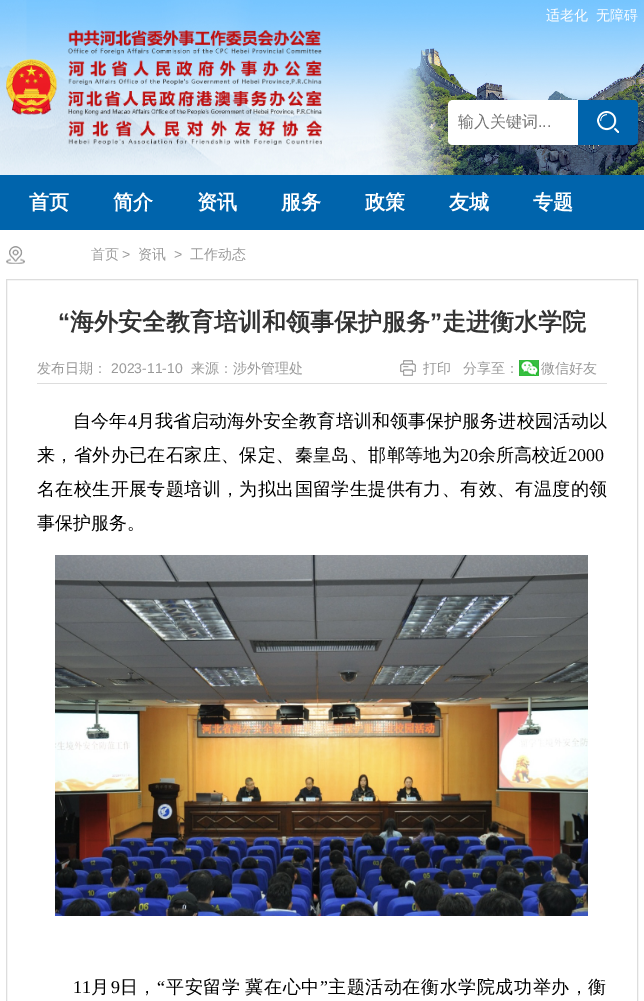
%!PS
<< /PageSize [644 1001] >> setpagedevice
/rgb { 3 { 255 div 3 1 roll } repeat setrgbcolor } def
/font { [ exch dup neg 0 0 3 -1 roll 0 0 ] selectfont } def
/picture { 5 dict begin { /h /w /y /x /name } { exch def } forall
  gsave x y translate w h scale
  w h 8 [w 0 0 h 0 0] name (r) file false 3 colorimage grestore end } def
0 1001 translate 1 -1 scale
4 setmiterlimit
255 255 255 rgb
0 0 644 1001 rectfill
(img/1.rgb) 0 0 644 175 picture
(img/2.rgb) 6 30 316 115 picture
453 100 moveto 578 100 lineto 578 145 lineto 453 145 lineto 450 145 448 143 448 140 curveto 448 105 lineto 448 102 450 100 453 100 curveto closepath fill
0 100 172 rgb
578 100 moveto 633 100 lineto 636 100 638 102 638 105 curveto 638 140 lineto 638 143 636 145 633 145 curveto 578 145 lineto closepath fill
(img/3.rgb) 597 111 22 22 picture
0 175 644 55 rectfill
(img/4.rgb) 6 246 19 18 picture
221 221 221 rgb
6.5 279.5 631 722 rectstroke
37 383 570 1 rectfill
(img/5.rgb) 400 360 16 16 picture
(img/6.rgb) 519 360 20 16 picture
(img/7.rgb) 55 555 533 361 picture
/WenQuanYiZenHei-Medium 14 font
255 255 255 rgb
546 20 moveto (适老化) show
596 20 moveto (无障碍) show
/WenQuanYiZenHei-Medium 16 font
117 117 117 rgb
458 127 moveto (输入关键词) show
/LiberationSans-Regular 16 font
538 127 moveto (...) show
/WenQuanYiZenHei-Bold 20 font
255 255 255 rgb
[
  [(首页) 29 209]
  [(简介) 113 209]
  [(资讯) 197 209]
  [(服务) 281 209]
  [(政策) 365 209]
  [(友城) 449 209]
  [(专题) 533 209]
] { aload pop moveto show } forall
/WenQuanYiZenHei-Medium 14 font
153 153 153 rgb
91 259 moveto (首页) show
/LiberationSans-Regular 14 font
122 259 moveto (>) show
/WenQuanYiZenHei-Medium 14 font
138 259 moveto (资讯) show
/LiberationSans-Regular 14 font
174 259 moveto (>) show
/WenQuanYiZenHei-Medium 14 font
190 259 moveto (工作动态) show
/LiberationSans-Bold 24 font
51 51 51 rgb
58 330 moveto (“) show
/WenQuanYiZenHei-Bold 24 font
70 330 moveto (海外安全教育培训和领事保护服务) show
/LiberationSans-Bold 24 font
430 330 moveto (”) show
/WenQuanYiZenHei-Bold 24 font
442 330 moveto (走进衡水学院) show
/WenQuanYiZenHei-Medium 14 font
153 153 153 rgb
37 373 moveto (发布日期：) show
/LiberationSans-Regular 14 font
111 373 moveto (2023-11-10) show
/WenQuanYiZenHei-Medium 14 font
[
  [(来源：涉外管理处) 191 373]
  [(打印) 423 373]
  [(分享至：) 463 373]
  [(微信好友) 541 373]
] { aload pop moveto show } forall
/WenQuanYiZenHei-Medium 18 font
0 0 0 rgb
73 427 moveto (自今年) show
/LiberationSerif-Regular 18 font
128 427 moveto (4) show
/WenQuanYiZenHei-Medium 18 font
137 427 moveto (月我省启动) show
227 427 moveto 0.1 0 (海外安全教育培训和领事保护服务进校园活动以) ashow
37 461 moveto 0.4 0 (来，省外办已在石家庄、保定、秦皇岛、邯郸等地为) ashow
/LiberationSerif-Regular 18 font
460 461 moveto (20) show
/WenQuanYiZenHei-Medium 18 font
478 461 moveto (余所高校近) show
/LiberationSerif-Regular 18 font
568 461 moveto (2000) show
/WenQuanYiZenHei-Medium 18 font
37 495 moveto 0.4 0 (名在校生开展专题培训，为拟出国留学生提供有力、有效、有温度的领) ashow
37 529 moveto (事保护服务。) show
/LiberationSerif-Regular 18 font
73 993 moveto (11) show
/WenQuanYiZenHei-Medium 18 font
91 993 moveto (月) show
/LiberationSerif-Regular 18 font
111 993 moveto (9) show
/WenQuanYiZenHei-Medium 18 font
120 993 moveto (日，) show
/LiberationSerif-Regular 18 font
157 993 moveto 0.6 0 (“) ashow
/WenQuanYiZenHei-Medium 18 font
166 993 moveto -1 0 32 0.6 0 (平安留学 冀在心中) awidthshow
/LiberationSerif-Regular 18 font
320 993 moveto 0.6 0 (”) ashow
/WenQuanYiZenHei-Medium 18 font
328 993 moveto 0.6 0 (主题活动在衡水学院成功举办，衡) ashow
showpage
